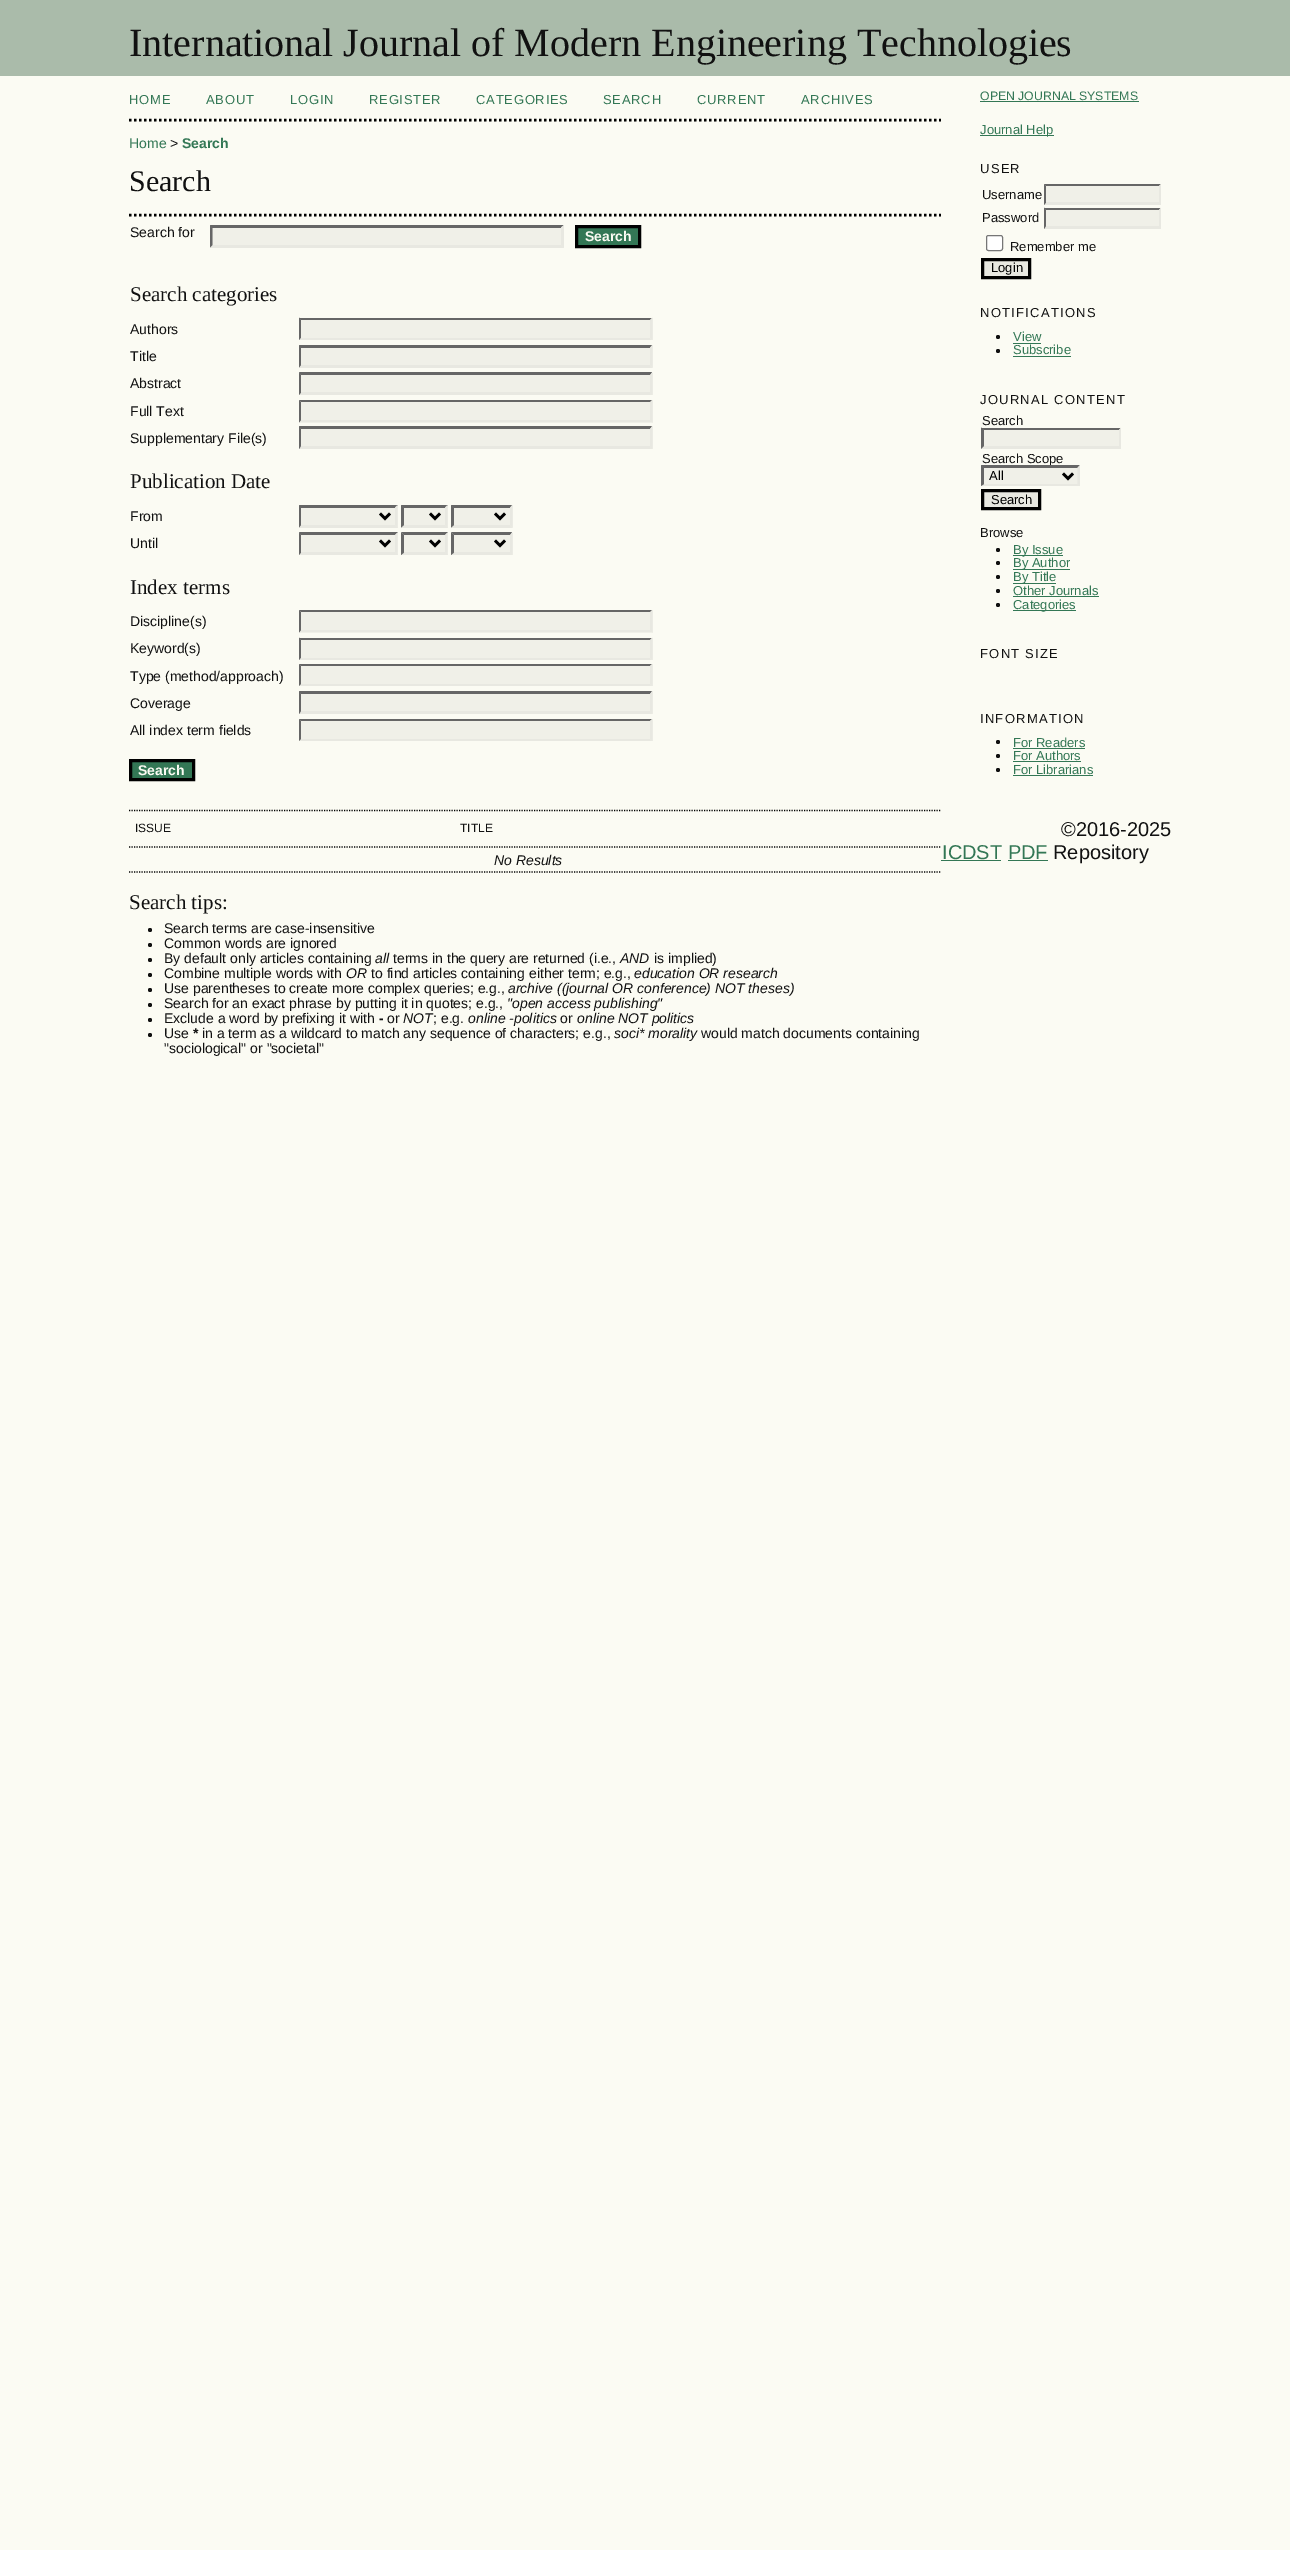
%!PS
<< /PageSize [1290 2550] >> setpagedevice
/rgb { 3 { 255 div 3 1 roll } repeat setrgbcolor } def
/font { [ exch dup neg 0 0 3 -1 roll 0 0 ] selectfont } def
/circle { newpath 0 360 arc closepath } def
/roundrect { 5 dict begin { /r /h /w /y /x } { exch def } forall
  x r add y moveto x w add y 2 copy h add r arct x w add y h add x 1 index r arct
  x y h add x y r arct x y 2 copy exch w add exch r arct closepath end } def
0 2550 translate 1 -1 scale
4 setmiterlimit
251 251 243 rgb
0 0 1290 2550 rectfill
170 187 170 rgb
0 0 1290 76 rectfill
0 0 0 rgb
2.5 setlinewidth
[2.5 2.5] 0 setdash
129 120 moveto 941 120 lineto stroke
129 215 moveto 941 215 lineto stroke
240 240 232 rgb
210 225 354 23 rectfill
102 102 102 rgb
210 225 moveto 564 225 lineto 561 228 lineto 212 228 lineto closepath fill
232 232 225 rgb
564 225 moveto 564 247.5 lineto 561 245 lineto 561 227.5 lineto closepath fill
564 248 moveto 210 248 lineto 212 245 lineto 561 245 lineto closepath fill
102 102 102 rgb
210 247.5 moveto 210 225 lineto 212.5 227.5 lineto 212.5 245 lineto closepath fill
51 119 85 rgb
576.5 226.5 moveto 639.5 226.5 lineto 639.5 246.5 lineto 576.5 246.5 lineto closepath gsave fill grestore
0 0 0 rgb
3 setlinewidth
[] 0 setdash
stroke
240 240 232 rgb
299 318 354 22 rectfill
102 102 102 rgb
299 318 moveto 652 318 lineto 650 320 lineto 301 320 lineto closepath fill
232 232 225 rgb
652.5 317.5 moveto 652.5 340 lineto 650 337.5 lineto 650 320 lineto closepath fill
652 340 moveto 299 340 lineto 301 338 lineto 650 338 lineto closepath fill
102 102 102 rgb
299 340 moveto 299 317.5 lineto 301 320 lineto 301 337.5 lineto closepath fill
240 240 232 rgb
299 345 354 23 rectfill
102 102 102 rgb
299 345 moveto 652 345 lineto 650 348 lineto 301 348 lineto closepath fill
232 232 225 rgb
652.5 345 moveto 652.5 367.5 lineto 650 365 lineto 650 347.5 lineto closepath fill
652 368 moveto 299 368 lineto 301 365 lineto 650 365 lineto closepath fill
102 102 102 rgb
299 367.5 moveto 299 345 lineto 301 347.5 lineto 301 365 lineto closepath fill
240 240 232 rgb
299 373 354 22 rectfill
102 102 102 rgb
299 372 moveto 652 372 lineto 650 375 lineto 301 375 lineto closepath fill
232 232 225 rgb
652.5 372.5 moveto 652.5 395 lineto 650 392.5 lineto 650 375 lineto closepath fill
652 395 moveto 299 395 lineto 301 392 lineto 650 392 lineto closepath fill
102 102 102 rgb
299 395 moveto 299 372.5 lineto 301 375 lineto 301 392.5 lineto closepath fill
240 240 232 rgb
299 400 354 23 rectfill
102 102 102 rgb
299 400 moveto 652 400 lineto 650 402 lineto 301 402 lineto closepath fill
232 232 225 rgb
652.5 400 moveto 652.5 422.5 lineto 650 420 lineto 650 402.5 lineto closepath fill
652 422 moveto 299 422 lineto 301 420 lineto 650 420 lineto closepath fill
102 102 102 rgb
299 422.5 moveto 299 400 lineto 301 402.5 lineto 301 420 lineto closepath fill
240 240 232 rgb
299 426 354 23 rectfill
102 102 102 rgb
299 426 moveto 652 426 lineto 650 429 lineto 301 429 lineto closepath fill
232 232 225 rgb
652.5 426 moveto 652.5 449 lineto 650 446 lineto 650 429 lineto closepath fill
652 449 moveto 299 449 lineto 301 446 lineto 650 446 lineto closepath fill
102 102 102 rgb
299 449 moveto 299 426 lineto 301 429 lineto 301 446 lineto closepath fill
240 240 232 rgb
299 505 99 23 rectfill
102 102 102 rgb
299 505 moveto 398 505 lineto 395 508 lineto 301 508 lineto closepath fill
232 232 225 rgb
397.5 505 moveto 397.5 527.5 lineto 395 525 lineto 395 507.5 lineto closepath fill
398 528 moveto 299 528 lineto 301 525 lineto 395 525 lineto closepath fill
102 102 102 rgb
299 527.5 moveto 299 505 lineto 301 507.5 lineto 301 525 lineto closepath fill
0 0 0 rgb
2.5 setlinewidth
380 513.5 moveto 385 518.5 lineto 390 513.5 lineto stroke
240 240 232 rgb
401 505 47 23 rectfill
102 102 102 rgb
401 505 moveto 448 505 lineto 445 508 lineto 404 508 lineto closepath fill
232 232 225 rgb
447.5 505 moveto 447.5 527.5 lineto 445 525 lineto 445 507.5 lineto closepath fill
448 528 moveto 401 528 lineto 404 525 lineto 445 525 lineto closepath fill
102 102 102 rgb
401 527.5 moveto 401 505 lineto 404 507.5 lineto 404 525 lineto closepath fill
0 0 0 rgb
430 513.5 moveto 435 518.5 lineto 440 513.5 lineto stroke
240 240 232 rgb
451 505 62 23 rectfill
102 102 102 rgb
451 505 moveto 512 505 lineto 510 508 lineto 454 508 lineto closepath fill
232 232 225 rgb
512.5 505 moveto 512.5 527.5 lineto 510 525 lineto 510 507.5 lineto closepath fill
512 528 moveto 451 528 lineto 454 525 lineto 510 525 lineto closepath fill
102 102 102 rgb
451 527.5 moveto 451 505 lineto 454 507.5 lineto 454 525 lineto closepath fill
0 0 0 rgb
495 513.5 moveto 500 518.5 lineto 505 513.5 lineto stroke
240 240 232 rgb
299 533 99 22 rectfill
102 102 102 rgb
299 532 moveto 398 532 lineto 395 535 lineto 301 535 lineto closepath fill
232 232 225 rgb
397.5 532.5 moveto 397.5 555 lineto 395 552.5 lineto 395 535 lineto closepath fill
398 555 moveto 299 555 lineto 301 552 lineto 395 552 lineto closepath fill
102 102 102 rgb
299 555 moveto 299 532.5 lineto 301 535 lineto 301 552.5 lineto closepath fill
0 0 0 rgb
380 540.5 moveto 385 545.5 lineto 390 540.5 lineto stroke
240 240 232 rgb
401 533 47 22 rectfill
102 102 102 rgb
401 532 moveto 448 532 lineto 445 535 lineto 404 535 lineto closepath fill
232 232 225 rgb
447.5 532.5 moveto 447.5 555 lineto 445 552.5 lineto 445 535 lineto closepath fill
448 555 moveto 401 555 lineto 404 552 lineto 445 552 lineto closepath fill
102 102 102 rgb
401 555 moveto 401 532.5 lineto 404 535 lineto 404 552.5 lineto closepath fill
0 0 0 rgb
430 540.5 moveto 435 545.5 lineto 440 540.5 lineto stroke
240 240 232 rgb
451 533 62 22 rectfill
102 102 102 rgb
451 532 moveto 512 532 lineto 510 535 lineto 454 535 lineto closepath fill
232 232 225 rgb
512.5 532.5 moveto 512.5 555 lineto 510 552.5 lineto 510 535 lineto closepath fill
512 555 moveto 451 555 lineto 454 552 lineto 510 552 lineto closepath fill
102 102 102 rgb
451 555 moveto 451 532.5 lineto 454 535 lineto 454 552.5 lineto closepath fill
0 0 0 rgb
495 540.5 moveto 500 545.5 lineto 505 540.5 lineto stroke
240 240 232 rgb
299 610 354 23 rectfill
102 102 102 rgb
299 610 moveto 652 610 lineto 650 612 lineto 301 612 lineto closepath fill
232 232 225 rgb
652.5 610 moveto 652.5 632.5 lineto 650 630 lineto 650 612.5 lineto closepath fill
652 632 moveto 299 632 lineto 301 630 lineto 650 630 lineto closepath fill
102 102 102 rgb
299 632.5 moveto 299 610 lineto 301 612.5 lineto 301 630 lineto closepath fill
240 240 232 rgb
299 638 354 22 rectfill
102 102 102 rgb
299 638 moveto 652 638 lineto 650 640 lineto 301 640 lineto closepath fill
232 232 225 rgb
652.5 637.5 moveto 652.5 660 lineto 650 657.5 lineto 650 640 lineto closepath fill
652 660 moveto 299 660 lineto 301 658 lineto 650 658 lineto closepath fill
102 102 102 rgb
299 660 moveto 299 637.5 lineto 301 640 lineto 301 657.5 lineto closepath fill
240 240 232 rgb
299 664 354 22 rectfill
102 102 102 rgb
299 664 moveto 652 664 lineto 650 666 lineto 301 666 lineto closepath fill
232 232 225 rgb
652.5 664 moveto 652.5 686 lineto 650 684 lineto 650 666 lineto closepath fill
652 686 moveto 299 686 lineto 301 684 lineto 650 684 lineto closepath fill
102 102 102 rgb
299 686 moveto 299 664 lineto 301 666 lineto 301 684 lineto closepath fill
240 240 232 rgb
299 691 354 23 rectfill
102 102 102 rgb
299 691 moveto 652 691 lineto 650 694 lineto 301 694 lineto closepath fill
232 232 225 rgb
652.5 691 moveto 652.5 714 lineto 650 711 lineto 650 694 lineto closepath fill
652 714 moveto 299 714 lineto 301 711 lineto 650 711 lineto closepath fill
102 102 102 rgb
299 714 moveto 299 691 lineto 301 694 lineto 301 711 lineto closepath fill
240 240 232 rgb
299 719 354 22 rectfill
102 102 102 rgb
299 719 moveto 652 719 lineto 650 721 lineto 301 721 lineto closepath fill
232 232 225 rgb
652.5 719 moveto 652.5 741 lineto 650 739 lineto 650 721 lineto closepath fill
652 741 moveto 299 741 lineto 301 739 lineto 650 739 lineto closepath fill
102 102 102 rgb
299 741 moveto 299 719 lineto 301 721 lineto 301 739 lineto closepath fill
51 119 85 rgb
130.5 760.5 moveto 193.5 760.5 lineto 193.5 779.5 lineto 130.5 779.5 lineto closepath gsave fill grestore
0 0 0 rgb
3 setlinewidth
stroke
1.2 setlinewidth
[1.25 1.25] 0 setdash
129 810.5 moveto 941 810.5 lineto stroke
129 847 moveto 941 847 lineto stroke
129 872 moveto 941 872 lineto stroke
17 17 17 rgb
150 930 2 circle fill
150 945 2 circle fill
150 960 2 circle fill
150 975 2 circle fill
150 990 2 circle fill
150 1005 2 circle fill
150 1020 2 circle fill
150 1035 2 circle fill
[
  [980 101 159 1 51 119 85]
  [980 135 74 1 51 119 85]
  [1044 184 117 21 240 240 232]
] { aload pop rgb rectfill } forall
102 102 102 rgb
1044 184 moveto 1161 184 lineto 1159 186 lineto 1046 186 lineto closepath fill
232 232 225 rgb
1161 184 moveto 1161 205 lineto 1159 202.5 lineto 1159 186 lineto closepath fill
1161 205 moveto 1044 205 lineto 1046 202 lineto 1159 202 lineto closepath fill
102 102 102 rgb
1044 205 moveto 1044 184 lineto 1046 186 lineto 1046 202.5 lineto closepath fill
240 240 232 rgb
1044 208 117 21 rectfill
102 102 102 rgb
1044 208 moveto 1161 208 lineto 1159 210 lineto 1046 210 lineto closepath fill
232 232 225 rgb
1161 207.5 moveto 1161 229 lineto 1159 226 lineto 1159 210 lineto closepath fill
1161 229 moveto 1044 229 lineto 1046 226 lineto 1159 226 lineto closepath fill
102 102 102 rgb
1044 229 moveto 1044 207.5 lineto 1046 210 lineto 1046 226 lineto closepath fill
255 255 255 rgb
986.5 235.5 16 15 2 roundrect gsave fill grestore
118 118 118 rgb
1 setlinewidth
[] 0 setdash
stroke
232 232 225 rgb
982.5 259.5 moveto 1029.5 259.5 lineto 1029.5 277.5 lineto 982.5 277.5 lineto closepath gsave fill grestore
0 0 0 rgb
3 setlinewidth
stroke
17 17 17 rgb
998 337 2 circle fill
51 119 85 rgb
1013 343 28 1 rectfill
17 17 17 rgb
998 351 2 circle fill
51 119 85 rgb
1013 356 58 1 rectfill
240 240 232 rgb
981 428 140 21 rectfill
102 102 102 rgb
981 428 moveto 1121 428 lineto 1119 430 lineto 984 430 lineto closepath fill
232 232 225 rgb
1121 427.5 moveto 1121 449 lineto 1119 446 lineto 1119 430 lineto closepath fill
1121 449 moveto 981 449 lineto 984 446 lineto 1119 446 lineto closepath fill
102 102 102 rgb
981 449 moveto 981 427.5 lineto 984 430 lineto 984 446 lineto closepath fill
232 232 225 rgb
982.5 490.5 moveto 1039.5 490.5 lineto 1039.5 508.5 lineto 982.5 508.5 lineto closepath gsave fill grestore
0 0 0 rgb
stroke
17 17 17 rgb
998 550 2 circle fill
51 119 85 rgb
1013 555 50 1 rectfill
17 17 17 rgb
998 563 2 circle fill
51 119 85 rgb
1013 569 57 1 rectfill
17 17 17 rgb
998 577 2 circle fill
51 119 85 rgb
1013 583 43 1 rectfill
17 17 17 rgb
998 591 2 circle fill
51 119 85 rgb
1013 596 86 1 rectfill
17 17 17 rgb
998 605 2 circle fill
51 119 85 rgb
1013 610 63 1 rectfill
17 17 17 rgb
998 742 2 circle fill
51 119 85 rgb
1013 748 72 1 rectfill
17 17 17 rgb
998 756 2 circle fill
51 119 85 rgb
1013 761 68 1 rectfill
17 17 17 rgb
998 770 2 circle fill
[
  [1013 775 80 1 51 119 85]
  [941 860 60 1 51 119 85]
  [1008 860 40 1 51 119 85]
] { aload pop rgb rectfill } forall
/LiberationSerif-Regular 40 font
17 17 17 rgb
129 56 moveto (International Journal of Modern Engineering Technologies) show
/LiberationSans-Regular 13 font
51 119 85 rgb
129 104 moveto 0.75 0 (HOME) ashow
206 104 moveto 0.75 0 (ABOUT) ashow
290 104 moveto 0.75 0 (LOGIN) ashow
369 104 moveto 0.75 0 (REGISTER) ashow
476 104 moveto 0.75 0 (CATEGORIES) ashow
603 104 moveto 0.75 0 (SEARCH) ashow
697 104 moveto 0.75 0 (CURRENT) ashow
801 104 moveto 0.75 0 (ARCHIVES) ashow
/LiberationSans-Regular 14 font
129 148 moveto (Home) show
17 17 17 rgb
170 148 moveto (>) show
/LiberationSans-Bold 14 font
51 119 85 rgb
182 148 moveto (Search) show
/LiberationSerif-Regular 30 font
17 17 17 rgb
129 191 moveto (Search) show
/LiberationSans-Regular 14 font
130 237 moveto (Search for) show
/LiberationSans-Bold 14 font
251 251 243 rgb
585 241 moveto (Search) show
/LiberationSerif-Regular 21 font
17 17 17 rgb
130 301 moveto (Search categories) show
/LiberationSans-Regular 14 font
[
  [(Authors) 130 334]
  [(Title) 130 361]
  [(Abstract) 130 388]
  [(Full Text) 130 416]
  [(Supplementary File\(s\)) 130 443]
] { aload pop moveto show } forall
/LiberationSerif-Regular 21 font
130 488 moveto (Publication Date) show
/LiberationSans-Regular 14 font
130 521 moveto (From) show
130 548 moveto (Until) show
/LiberationSerif-Regular 21 font
130 594 moveto (Index terms) show
/LiberationSans-Regular 14 font
[
  [(Discipline\(s\)) 130 626]
  [(Keyword\(s\)) 130 653]
  [(Type \(method/approach\)) 130 681]
  [(Coverage) 130 708]
  [(All index term fields) 130 735]
] { aload pop moveto show } forall
/LiberationSans-Bold 14 font
251 251 243 rgb
138 775 moveto (Search) show
/LiberationSans-Regular 12 font
17 17 17 rgb
135 832 moveto (ISSUE) show
460 832 moveto (TITLE) show
/LiberationSans-Italic 14 font
494 865 moveto (No Results) show
/LiberationSerif-Regular 21 font
129 909 moveto (Search tips:) show
/LiberationSans-Regular 14 font
[
  [(Search terms are case-insensitive) 164 933]
  [(Common words are ignored) 164 948]
  [(By default only articles containing) 164 963]
] { aload pop moveto show } forall
/LiberationSans-Italic 14 font
375 963 moveto (all) show
/LiberationSans-Regular 14 font
393 963 moveto (terms in the query are returned \(i.e.,) show
/LiberationSans-Italic 14 font
620 963 moveto (AND) show
/LiberationSans-Regular 14 font
654 963 moveto (is implied\)) show
164 978 moveto (Combine multiple words with) show
/LiberationSans-Italic 14 font
346 978 moveto (OR) show
/LiberationSans-Regular 14 font
371 978 moveto (to find articles containing either term; e.g.,) show
/LiberationSans-Italic 14 font
634 978 moveto (education OR research) show
/LiberationSans-Regular 14 font
164 993 moveto (Use parentheses to create more complex queries; e.g.,) show
/LiberationSans-Italic 14 font
508 993 moveto (archive \(\(journal OR conference\) NOT theses\)) show
/LiberationSans-Regular 14 font
164 1008 moveto (Search for an exact phrase by putting it in quotes; e.g.,) show
/LiberationSans-Italic 14 font
507 1008 moveto ("open access publishing") show
/LiberationSans-Regular 14 font
164 1023 moveto (Exclude a word by prefixing it with) show
/LiberationSans-Bold 14 font
379 1023 moveto (-) show
/LiberationSans-Regular 14 font
387 1023 moveto (or) show
/LiberationSans-Italic 14 font
403 1023 moveto (NOT) show
/LiberationSans-Regular 14 font
433 1023 moveto (; e.g.) show
/LiberationSans-Italic 14 font
468 1023 moveto (online -politics) show
/LiberationSans-Regular 14 font
560 1023 moveto (or) show
/LiberationSans-Italic 14 font
577 1023 moveto (online NOT politics) show
/LiberationSans-Regular 14 font
164 1038 moveto (Use) show
/LiberationSans-Bold 14 font
193 1038 moveto (*) show
/LiberationSans-Regular 14 font
202 1038 moveto (in a term as a wildcard to match any sequence of characters; e.g.,) show
/LiberationSans-Italic 14 font
614 1038 moveto (soci* morality) show
/LiberationSans-Regular 14 font
701 1038 moveto (would match documents containing) show
164 1053 moveto ("sociological" or "societal") show
/LiberationSans-Regular 12.3 font
51 119 85 rgb
980 100 moveto (OPEN JOURNAL SYSTEMS) show
/LiberationSans-Regular 13 font
980 134 moveto (Journal Help) show
17 17 17 rgb
980 173 moveto 1.25 0 (USER) ashow
[
  [(Username) 982 199]
  [(Password) 982 222]
  [(Remember me) 1010 251]
] { aload pop moveto show } forall
0 0 0 rgb
991 272 moveto (Login) show
17 17 17 rgb
980 317 moveto 1.25 0 (NOTIFICATIONS) ashow
51 119 85 rgb
1013 341 moveto (View) show
1013 354 moveto (Subscribe) show
17 17 17 rgb
980 404 moveto 1.25 0 (JOURNAL CONTENT) ashow
982 425 moveto (Search) show
982 463 moveto (Search Scope) show
240 240 232 rgb
981 465 99 21 rectfill
102 102 102 rgb
981 465 moveto 1080 465 lineto 1078 468 lineto 984 468 lineto closepath fill
232 232 225 rgb
1080 465 moveto 1080 486 lineto 1077.5 484 lineto 1077.5 467.5 lineto closepath fill
1080 486 moveto 981 486 lineto 984 484 lineto 1078 484 lineto closepath fill
102 102 102 rgb
981 486 moveto 981 465 lineto 984 467.5 lineto 984 484 lineto closepath fill
0 0 0 rgb
2.5 setlinewidth
1063 473.5 moveto 1068 478.5 lineto 1073 473.5 lineto stroke
989 480 moveto (All) show
991 504 moveto (Search) show
17 17 17 rgb
980 537 moveto (Browse) show
51 119 85 rgb
[
  [(By Issue) 1013 554]
  [(By Author) 1013 567]
  [(By Title) 1013 581]
  [(Other Journals) 1013 595]
  [(Categories) 1013 609]
] { aload pop moveto show } forall
17 17 17 rgb
980 658 moveto 1.25 0 (FONT SIZE) ashow
980 723 moveto 1.25 0 (INFORMATION) ashow
51 119 85 rgb
[
  [(For Readers) 1013 747]
  [(For Authors) 1013 760]
  [(For Librarians) 1013 774]
] { aload pop moveto show } forall
/LiberationSans-Regular 20 font
17 17 17 rgb
1061 836 moveto (©2016-2025) show
51 119 85 rgb
942 859 moveto (ICDST PDF) show
17 17 17 rgb
1053 859 moveto (Repository) show
showpage
